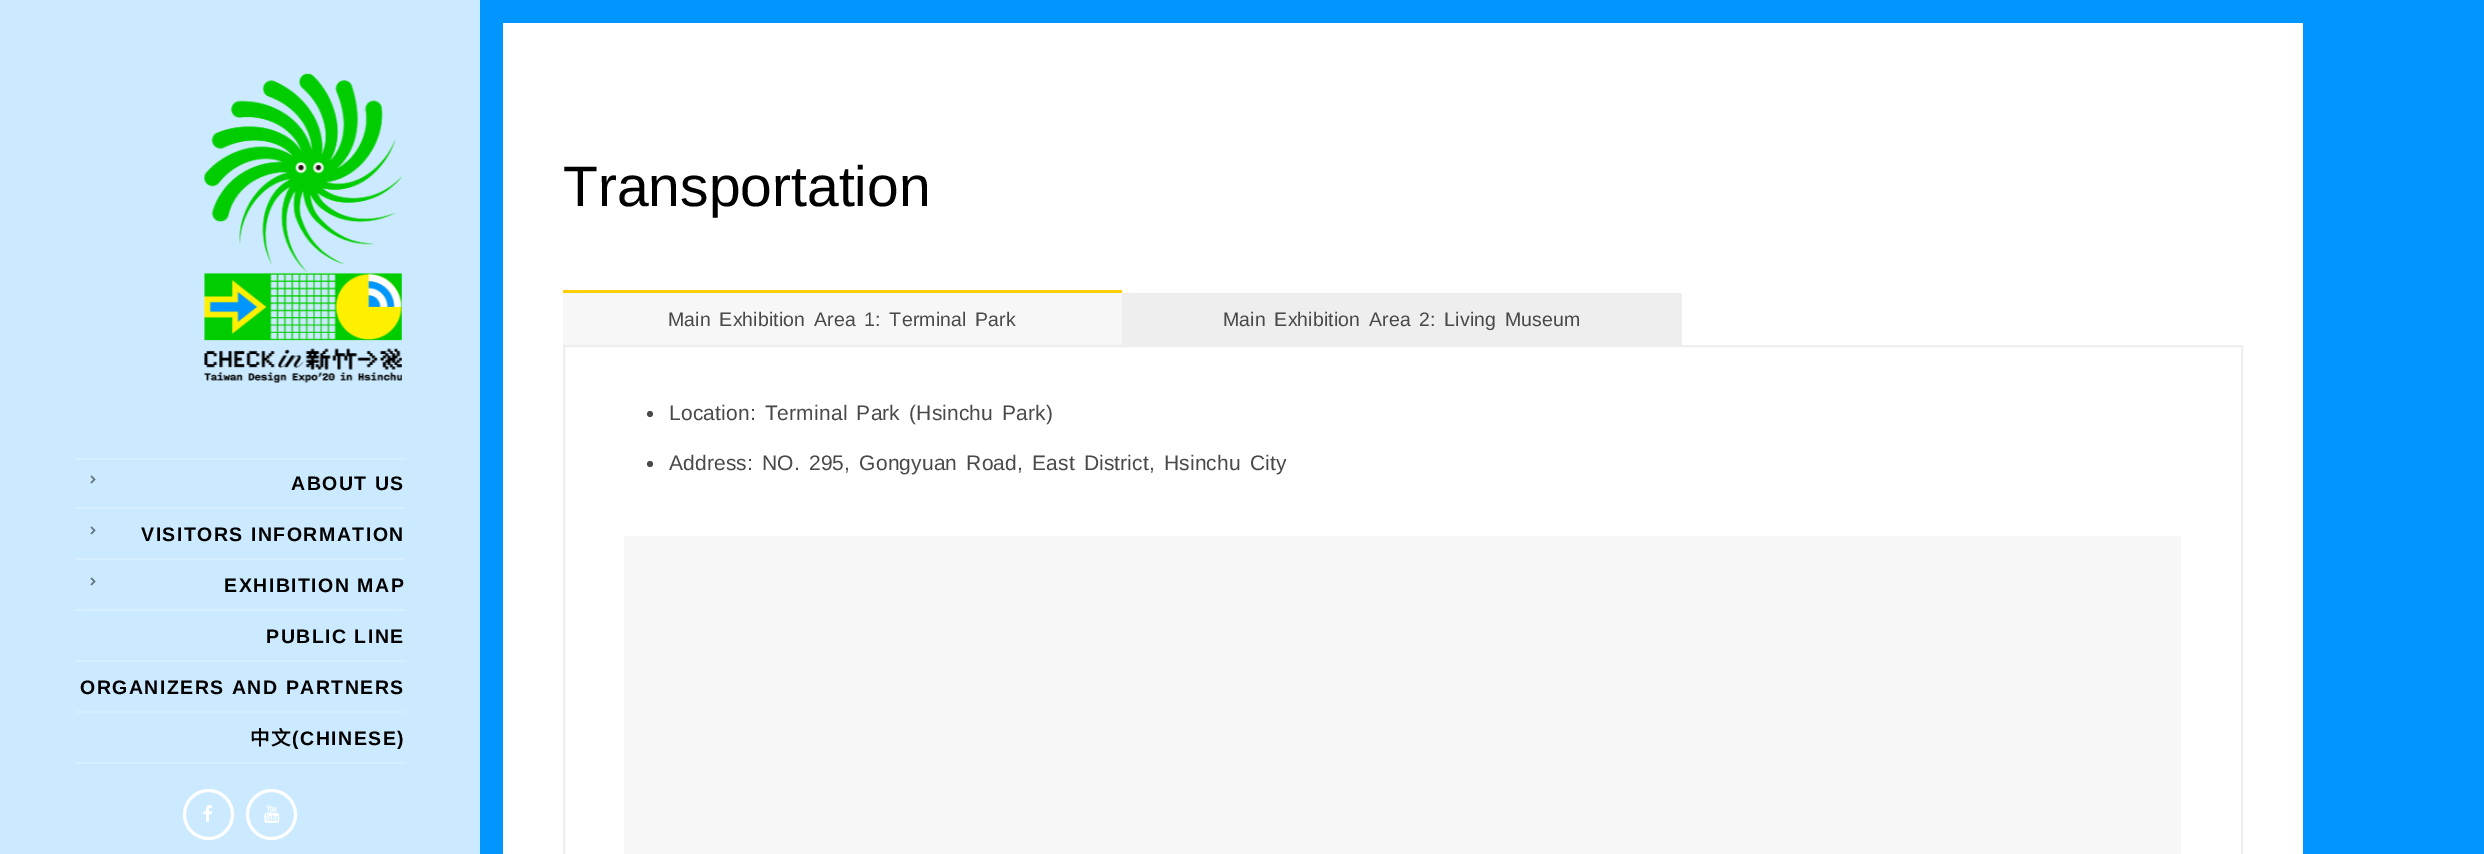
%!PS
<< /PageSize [2484 854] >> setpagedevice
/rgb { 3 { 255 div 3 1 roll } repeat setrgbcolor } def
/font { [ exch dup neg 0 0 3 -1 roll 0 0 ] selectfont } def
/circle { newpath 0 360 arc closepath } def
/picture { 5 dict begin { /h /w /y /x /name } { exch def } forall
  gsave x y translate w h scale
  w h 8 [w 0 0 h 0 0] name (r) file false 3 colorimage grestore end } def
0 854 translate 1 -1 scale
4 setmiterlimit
1 149 255 rgb
0 0 2484 854 rectfill
[
  [503 23 1800 831 255 255 255]
  [563 290 559 3 253 207 0]
  [563 293 559 52 247 247 247]
  [1122 293 560 52 238 238 238]
] { aload pop rgb rectfill } forall
2 setlinewidth
564 346 1678 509 rectstroke
73 73 73 rgb
650 414 3 circle fill
650 464 3 circle fill
247 247 247 rgb
624 536 1557 318 rectfill
204 234 255 rgb
0 0 480 854 rectfill
(img/1.rgb) 204 73 198 310 picture
214 238 255 rgb
75 458 330 2 rectfill
75 507 330 2 rectfill
(img/2.rgb) 90 475 6 9 picture
75 558 330 2 rectfill
(img/2.rgb) 90 526 6 9 picture
75 609 330 2 rectfill
(img/2.rgb) 90 577 6 9 picture
[
  [75 660 330 2 214 238 255]
  [75 711 330 2 214 238 255]
  [75 762 330 2 214 238 255]
] { aload pop rgb rectfill } forall
255 255 255 rgb
3 setlinewidth
208.5 814.5 24 circle stroke
(img/3.rgb) 203 805 10 17 picture
271.5 814.5 24 circle stroke
(img/4.rgb) 264 805 16 18 picture
/LiberationSans-Regular 57 font
0 0 0 rgb
563 206 moveto (Transportation) show
/LiberationSans-Regular 19.5 font
73 73 73 rgb
668 326 moveto 3 0 32 0.15 0 (Main Exhibition Area 1: Terminal Park) awidthshow
1223 326 moveto 3 0 32 0.15 0 (Main Exhibition Area 2: Living Museum) awidthshow
/LiberationSans-Regular 21 font
669 420 moveto 3 0 32 0.15 0 (Location: Terminal Park \(Hsinchu Park\)) awidthshow
669 470 moveto 3 0 32 0.15 0 (Address: NO. 295, Gongyuan Road, East District, Hsinchu City) awidthshow
/LiberationSans-Bold 19.5 font
0 0 0 rgb
291 490 moveto 1.5 0 (ABOUT US) ashow
141 541 moveto 1.5 0 (VISITORS INFORMATION) ashow
224 592 moveto 1.5 0 (EXHIBITION MAP) ashow
266 643 moveto 1.5 0 (PUBLIC LINE) ashow
80 694 moveto 1.5 0 (ORGANIZERS AND PARTNERS) ashow
/NotoSansCJKTC-Bold 19.5 font
250 745 moveto 1.5 0 (中文) ashow
/LiberationSans-Bold 19.5 font
292 745 moveto 1.5 0 (\(CHINESE\)) ashow
showpage
